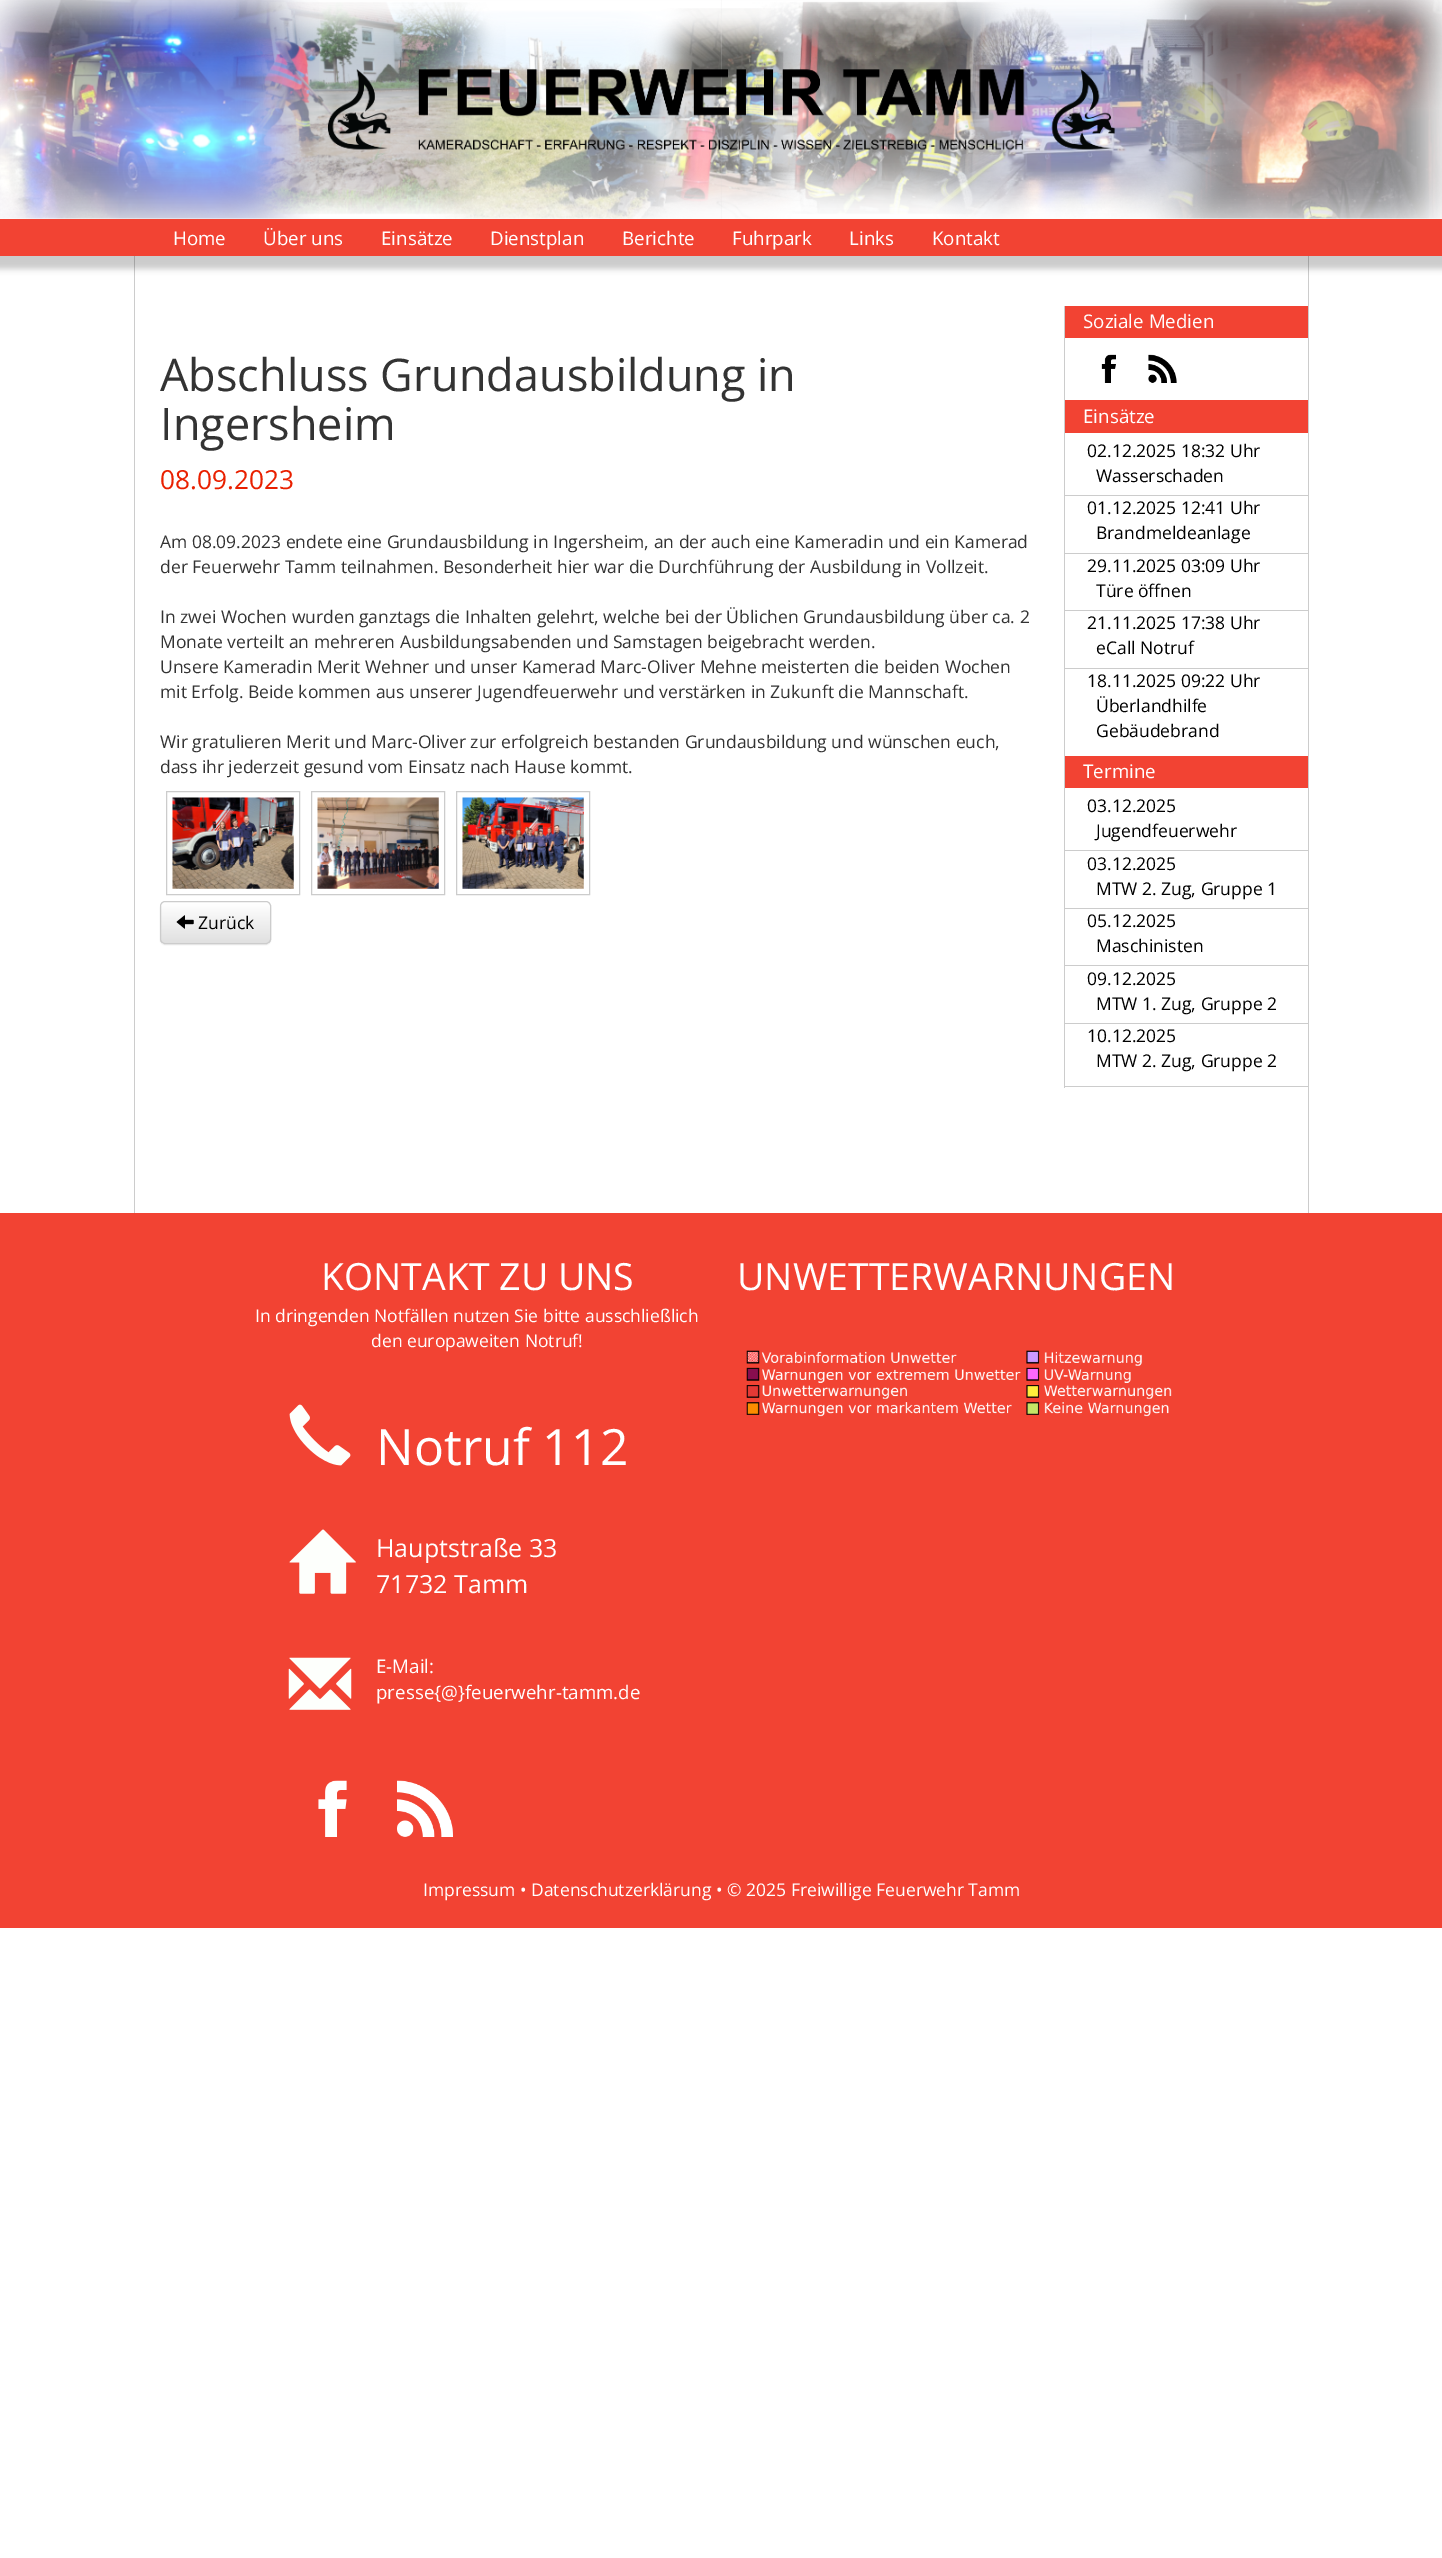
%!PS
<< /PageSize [1442 2558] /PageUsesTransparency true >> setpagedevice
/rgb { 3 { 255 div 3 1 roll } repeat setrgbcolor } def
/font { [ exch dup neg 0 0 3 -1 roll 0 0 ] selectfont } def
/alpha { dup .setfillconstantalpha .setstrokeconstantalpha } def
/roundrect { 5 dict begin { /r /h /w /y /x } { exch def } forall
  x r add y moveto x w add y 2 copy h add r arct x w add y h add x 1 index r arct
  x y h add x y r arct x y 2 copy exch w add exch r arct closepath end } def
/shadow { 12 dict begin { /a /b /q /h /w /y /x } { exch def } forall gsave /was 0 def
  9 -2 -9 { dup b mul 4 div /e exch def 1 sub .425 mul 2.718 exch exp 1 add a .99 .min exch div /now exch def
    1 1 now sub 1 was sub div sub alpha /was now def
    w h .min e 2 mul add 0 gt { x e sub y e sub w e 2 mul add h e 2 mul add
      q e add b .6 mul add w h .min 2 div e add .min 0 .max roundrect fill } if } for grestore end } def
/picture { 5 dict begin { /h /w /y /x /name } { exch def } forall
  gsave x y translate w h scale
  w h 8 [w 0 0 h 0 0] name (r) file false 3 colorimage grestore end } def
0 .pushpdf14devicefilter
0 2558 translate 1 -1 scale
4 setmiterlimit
255 255 255 rgb
0 0 1442 2558 rectfill
(img/1.rgb) 0 0 1442 219 picture
204 204 204 rgb
1308 256 1 957 rectfill
134 256 1 957 rectfill
0 0 0 rgb
-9 231 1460 38 0 3 0.2 shadow
242 67 51 rgb
0 219 1442 37 rectfill
204 204 204 rgb
166.5 791.5 133 103 rectstroke
311.5 791.5 133 103 rectstroke
456.5 791.5 133 103 rectstroke
(img/2.rgb) 172 797 122 92 picture
(img/3.rgb) 317 797 122 92 picture
(img/4.rgb) 462 797 122 92 picture
0 0 0 rgb
160 903 111 42 5 0.5 0.07 shadow
255 255 255 rgb
160 901 111 43 5 roundrect fill
gsave
160 901 111 43 5 roundrect clip newpath
gsave 160 903 moveto 271 903 lineto 271 943 lineto 160 943 lineto closepath clip newpath
<< /ShadingType 2 /ColorSpace /DeviceRGB /Coords [216 903 216 943] /Extend [true true] /Function << /FunctionType 2 /Domain [0 1] /C0 [1 1 1] /C1 [0.878 0.878 0.878] /N 1 >> >> shfill grestore
grestore
204 204 204 rgb
160.5 901.5 110 42 4.5 roundrect stroke
(img/5.rgb) 176 915 18 14 picture
[
  [1064 1086 244 1 204 204 204]
  [1064 306 1 782 204 204 204]
  [1065 306 243 32 242 67 51]
] { aload pop rgb rectfill } forall
(img/6.rgb) 1101 354 15 29 picture
(img/7.rgb) 1148 354 29 29 picture
[
  [1065 400 243 33 242 67 51]
  [1065 495 243 1 204 204 204]
  [1065 553 243 1 204 204 204]
  [1065 610 243 1 204 204 204]
  [1065 668 243 1 204 204 204]
  [1065 756 243 32 242 67 51]
  [1065 850 243 1 204 204 204]
  [1065 908 243 1 204 204 204]
  [1065 965 243 1 204 204 204]
  [1065 1023 243 1 204 204 204]
  [0 1213 1442 715 242 67 51]
] { aload pop rgb rectfill } forall
(img/8.rgb) 289 1404 62 62 picture
(img/9.rgb) 289 1529 67 65 picture
(img/10.rgb) 288 1657 64 53 picture
(img/11.rgb) 318 1780 29 57 picture
(img/12.rgb) 397 1780 56 57 picture
(img/13.rgb) 746 1350 426 67 picture
/OpenSans-Regular 18.75 font
255 255 255 rgb
[
  [(Home) 173 245]
  [(Über uns) 263 245]
  [(Einsätze) 381 245]
  [(Dienstplan) 490 245]
  [(Berichte) 622 245]
  [(Fuhrpark) 732 245]
  [(Links) 849 245]
  [(Kontakt) 932 245]
] { aload pop moveto show } forall
/OpenSans-Regular 45 font
51 51 51 rgb
160 391 moveto (Abschluss Grundausbildung in) show
160 440 moveto (Ingersheim) show
/OpenSans-Regular 26.25 font
233 32 0 rgb
160 489 moveto (08.09.2023) show
/OpenSans-Regular 17.5 font
51 51 51 rgb
[
  [(Am 08.09.2023 endete eine Grundausbildung in Ingersheim, an der auch eine Kameradin und ein Kamerad) 160 548]
  [(der Feuerwehr Tamm teilnahmen. Besonderheit hier war die Durchführung der Ausbildung in Vollzeit.) 160 573]
  [(In zwei Wochen wurden ganztags die Inhalten gelehrt, welche bei der Üblichen Grundausbildung über ca. 2) 160 623]
  [(Monate verteilt an mehreren Ausbildungsabenden und Samstagen beigebracht werden.) 160 648]
  [(Unsere Kameradin Merit Wehner und unser Kamerad Marc-Oliver Mehne meisterten die beiden Wochen) 160 673]
  [(mit Erfolg. Beide kommen aus unserer Jugendfeuerwehr und verstärken in Zukunft die Mannschaft.) 160 698]
  [(Wir gratulieren Merit und Marc-Oliver zur erfolgreich bestanden Grundausbildung und wünschen euch,) 160 748]
  [(dass ihr jederzeit gesund vom Einsatz nach Hause kommt.) 160 773]
] { aload pop moveto show } forall
0 0 0 rgb
198 929 moveto (Zurück) show
/OpenSans-Regular 18.75 font
255 255 255 rgb
1083 328 moveto (Soziale Medien) show
1083 423 moveto (Einsätze) show
/OpenSans-Regular 17.5 font
0 0 0 rgb
[
  [(02.12.2025 18:32 Uhr) 1087 457]
  [(Wasserschaden) 1096 482]
  [(01.12.2025 12:41 Uhr) 1087 514]
  [(Brandmeldeanlage) 1096 539]
  [(29.11.2025 03:09 Uhr) 1087 572]
  [(Türe öffnen) 1096 597]
  [(21.11.2025 17:38 Uhr) 1087 629]
  [(eCall Notruf) 1096 654]
  [(18.11.2025 09:22 Uhr) 1087 687]
  [(Überlandhilfe) 1096 712]
  [(Gebäudebrand) 1096 737]
] { aload pop moveto show } forall
/OpenSans-Regular 18.75 font
255 255 255 rgb
1083 778 moveto (Termine) show
/OpenSans-Regular 17.5 font
0 0 0 rgb
[
  [(03.12.2025) 1087 812]
  [(Jugendfeuerwehr) 1096 837]
  [(03.12.2025) 1087 870]
  [(MTW 2. Zug, Gruppe 1) 1096 895]
  [(05.12.2025) 1087 927]
  [(Maschinisten) 1096 952]
  [(09.12.2025) 1087 985]
  [(MTW 1. Zug, Gruppe 2) 1096 1010]
  [(10.12.2025) 1087 1042]
  [(MTW 2. Zug, Gruppe 2) 1096 1067]
] { aload pop moveto show } forall
/OpenSans-Regular 37.5 font
255 255 255 rgb
321 1290 moveto (KONTAKT ZU UNS) show
/OpenSans-Regular 17.5 font
255 1322 moveto (In dringenden Notfällen nutzen Sie bitte ausschließlich) show
371 1347 moveto (den europaweiten Notruf!) show
/OpenSans-Regular 50 font
376 1465 moveto (Notruf 112) show
/OpenSans-Regular 25 font
376 1557 moveto (Hauptstraße 33) show
376 1593 moveto (71732 Tamm) show
/OpenSans-Regular 18.75 font
376 1673 moveto (E-Mail:) show
376 1699 moveto (presse{@}feuerwehr-tamm.de) show
/OpenSans-Regular 37.5 font
737 1290 moveto (UNWETTERWARNUNGEN) show
/OpenSans-Regular 17.5 font
423 1896 moveto (Impressum • Datenschutzerklärung • © 2025 Freiwillige Feuerwehr Tamm) show
.poppdf14devicefilter showpage
